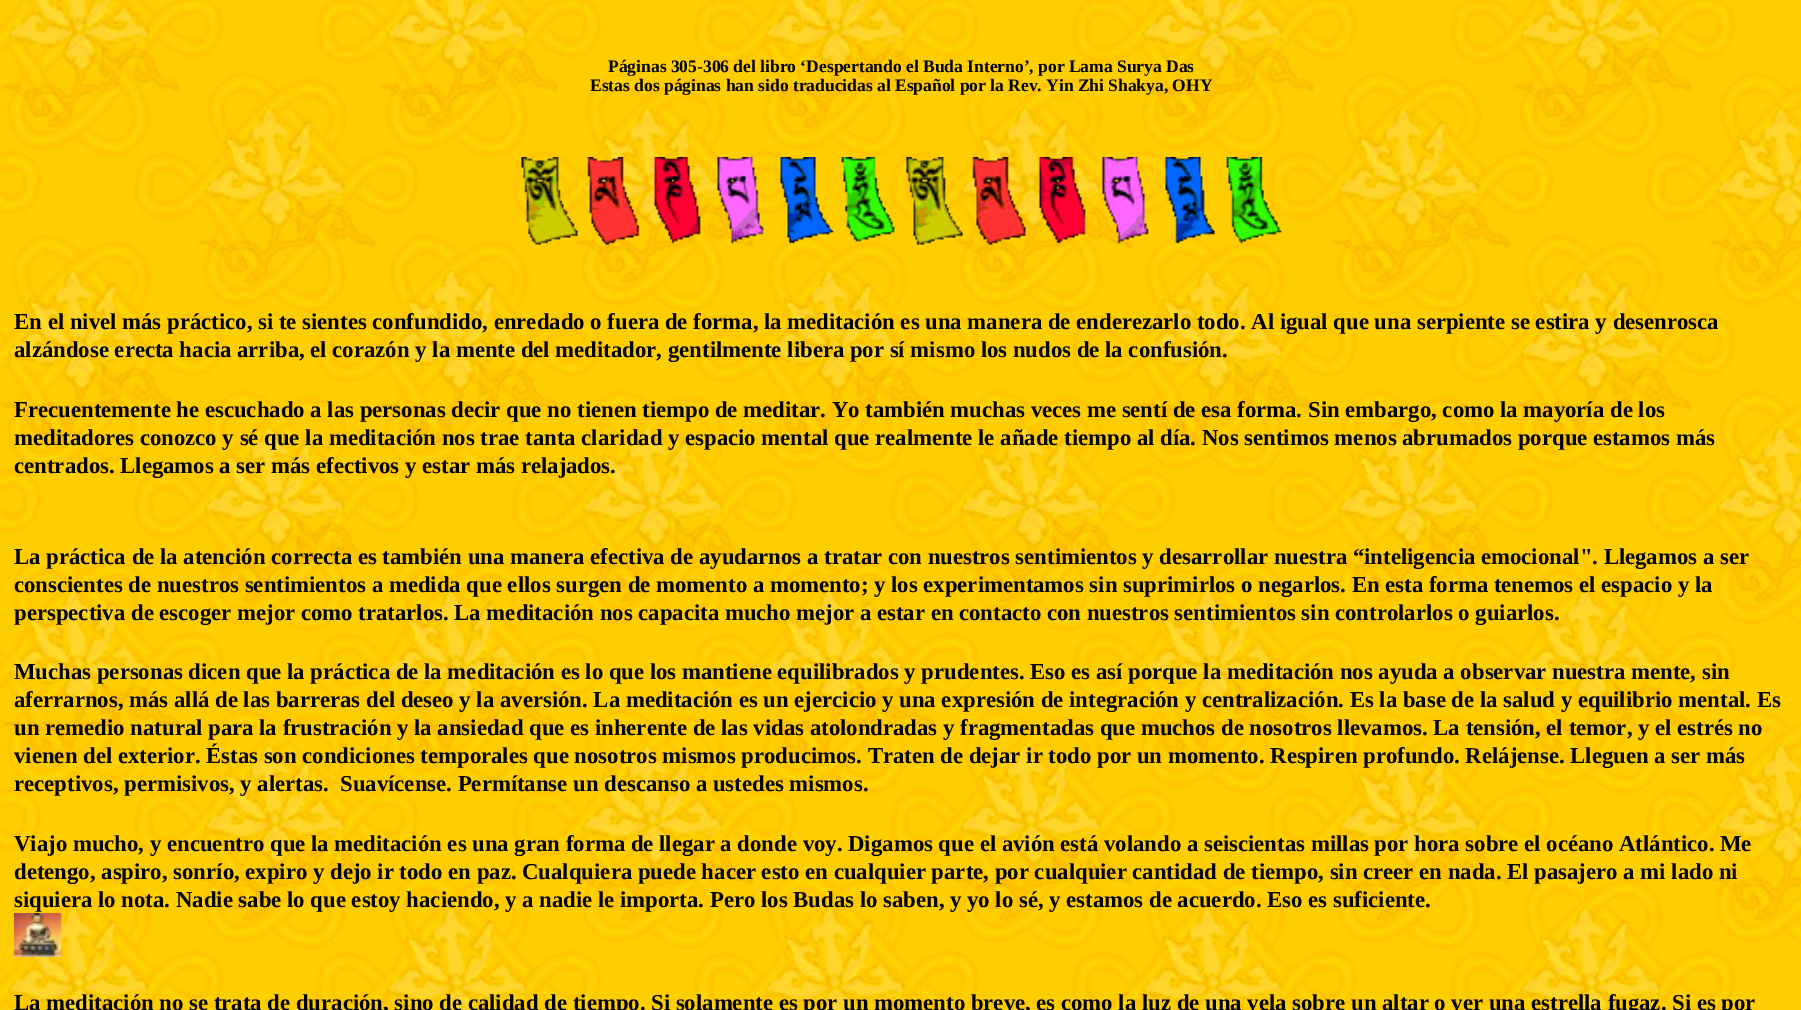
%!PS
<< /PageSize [1801 1010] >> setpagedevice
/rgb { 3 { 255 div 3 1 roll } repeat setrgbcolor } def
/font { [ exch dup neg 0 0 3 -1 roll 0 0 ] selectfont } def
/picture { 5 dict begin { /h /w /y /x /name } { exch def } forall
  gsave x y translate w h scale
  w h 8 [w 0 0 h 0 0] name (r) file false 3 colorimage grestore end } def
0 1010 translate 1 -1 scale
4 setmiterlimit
255 255 255 rgb
0 0 1801 1010 rectfill
(img/1.rgb) 0 0 1801 1010 picture
(img/2.rgb) 521 157 374 88 picture
(img/3.rgb) 906 157 376 88 picture
(img/4.rgb) 14 913 48 44 picture
/LiberationSerif-Bold 17.5 font
0 0 0 rgb
608 72 moveto (Páginas 305-306 del libro ‘Despertando el Buda Interno’, por Lama Surya Das) show
590 91 moveto (Estas dos páginas han sido traducidas al Español por la Rev. Yin Zhi Shakya, OHY) show
/LiberationSerif-Bold 22.75 font
[
  [(En el nivel más práctico, si te sientes confundido, enredado o fuera de forma, la meditación es una manera de enderezarlo todo. Al igual que una serpiente se estira y desenrosca) 14 329]
  [(alzándose erecta hacia arriba, el corazón y la mente del meditador, gentilmente libera por sí mismo los nudos de la confusión.) 14 357]
  [(Frecuentemente he escuchado a las personas decir que no tienen tiempo de meditar. Yo también muchas veces me sentí de esa forma. Sin embargo, como la mayoría de los) 14 417]
  [(meditadores conozco y sé que la meditación nos trae tanta claridad y espacio mental que realmente le añade tiempo al día. Nos sentimos menos abrumados porque estamos más) 14 445]
  [(centrados. Llegamos a ser más efectivos y estar más relajados.) 14 473]
  [(La práctica de la atención correcta es también una manera efectiva de ayudarnos a tratar con nuestros sentimientos y desarrollar nuestra “inteligencia emocional". Llegamos a ser) 14 564]
  [(conscientes de nuestros sentimientos a medida que ellos surgen de momento a momento; y los experimentamos sin suprimirlos o negarlos. En esta forma tenemos el espacio y la) 14 592]
  [(perspectiva de escoger mejor como tratarlos. La meditación nos capacita mucho mejor a estar en contacto con nuestros sentimientos sin controlarlos o guiarlos.) 14 620]
  [(Muchas personas dicen que la práctica de la meditación es lo que los mantiene equilibrados y prudentes. Eso es así porque la meditación nos ayuda a observar nuestra mente, sin) 14 679]
  [(aferrarnos, más allá de las barreras del deseo y la aversión. La meditación es un ejercicio y una expresión de integración y centralización. Es la base de la salud y equilibrio mental. Es) 14 707]
  [(un remedio natural para la frustración y la ansiedad que es inherente de las vidas atolondradas y fragmentadas que muchos de nosotros llevamos. La tensión, el temor, y el estrés no) 14 735]
  [(vienen del exterior. Éstas son condiciones temporales que nosotros mismos producimos. Traten de dejar ir todo por un momento. Respiren profundo. Relájense. Lleguen a ser más) 14 763]
  [(receptivos, permisivos, y alertas.) 14 791]
  [(Suavícense. Permítanse un descanso a ustedes mismos.) 340 791]
  [(Viajo mucho, y encuentro que la meditación es una gran forma de llegar a donde voy. Digamos que el avión está volando a seiscientas millas por hora sobre el océano Atlántico. Me) 14 851]
  [(detengo, aspiro, sonrío, expiro y dejo ir todo en paz. Cualquiera puede hacer esto en cualquier parte, por cualquier cantidad de tiempo, sin creer en nada. El pasajero a mi lado ni) 14 879]
  [(siquiera lo nota. Nadie sabe lo que estoy haciendo, y a nadie le importa. Pero los Budas lo saben, y yo lo sé, y estamos de acuerdo. Eso es suficiente.) 14 907]
  [(La meditación no se trata de duración, sino de calidad de tiempo. Si solamente es por un momento breve, es como la luz de una vela sobre un altar o ver una estrella fugaz. Si es por) 14 1010]
] { aload pop moveto show } forall
showpage
